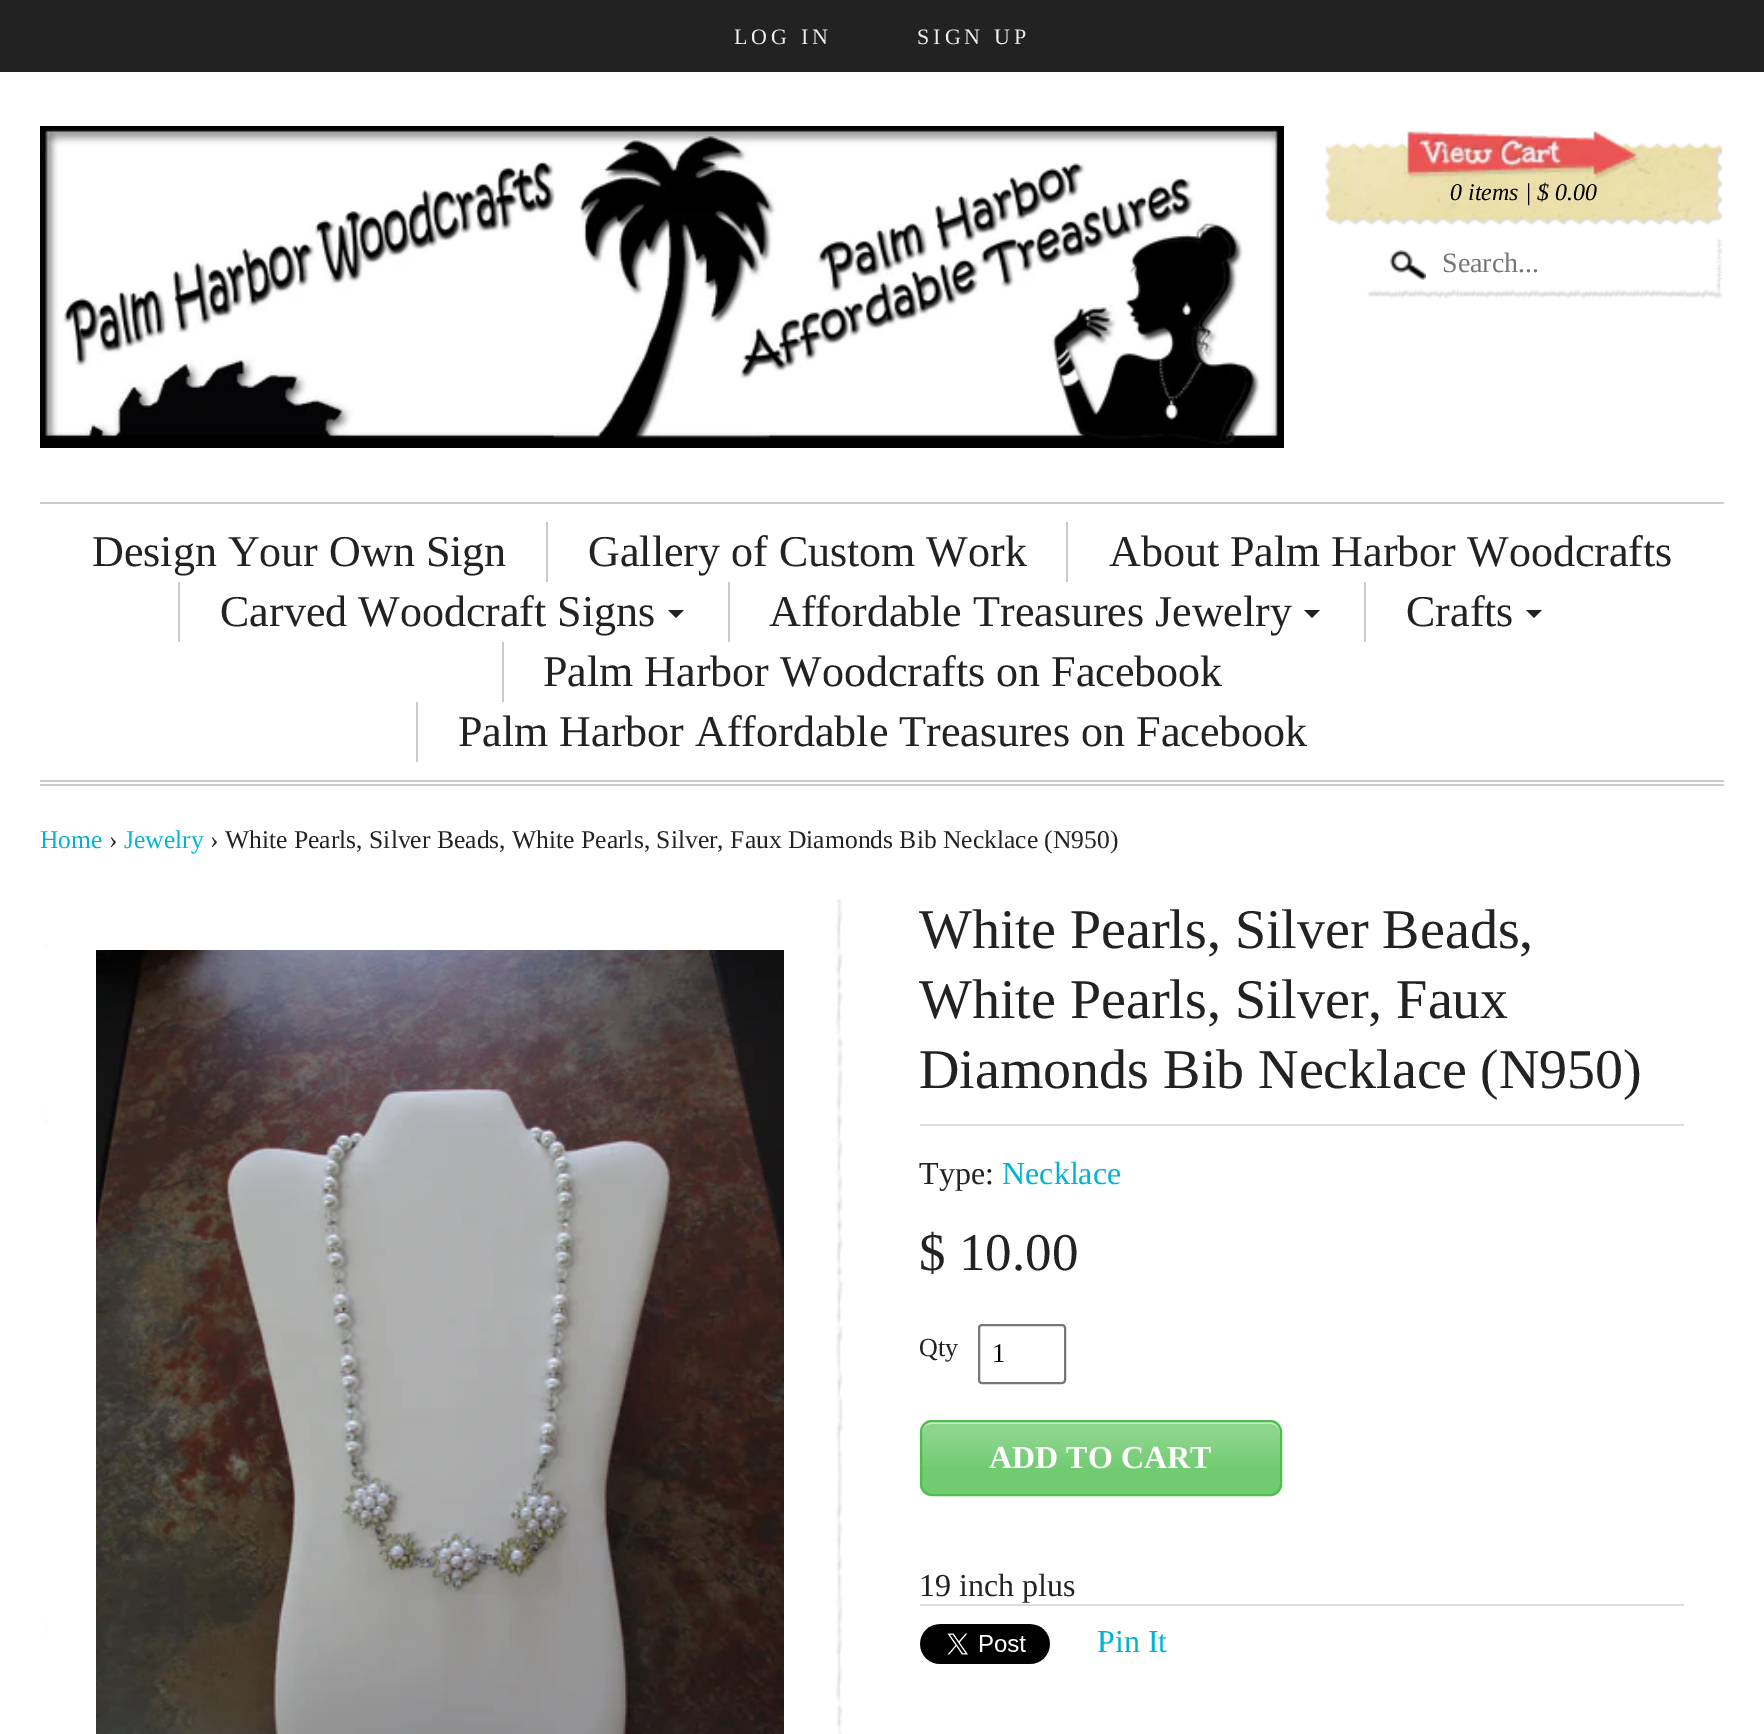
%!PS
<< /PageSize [1764 1734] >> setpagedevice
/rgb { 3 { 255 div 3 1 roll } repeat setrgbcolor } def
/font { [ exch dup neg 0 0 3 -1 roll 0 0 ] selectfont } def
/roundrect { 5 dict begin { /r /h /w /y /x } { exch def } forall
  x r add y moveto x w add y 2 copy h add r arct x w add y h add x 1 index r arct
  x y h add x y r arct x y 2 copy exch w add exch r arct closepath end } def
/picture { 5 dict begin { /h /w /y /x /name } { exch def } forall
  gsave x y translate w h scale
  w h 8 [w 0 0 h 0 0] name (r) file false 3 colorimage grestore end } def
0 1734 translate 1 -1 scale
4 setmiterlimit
255 255 255 rgb
0 0 1764 1734 rectfill
34 34 34 rgb
0 0 1764 72 rectfill
(img/1.rgb) 40 126 1244 322 picture
(img/2.rgb) 1325 131 398 94 picture
(img/3.rgb) 1366 237 357 61 picture
(img/4.rgb) 1390 250 36 30 picture
[
  [40 502 1684 2 204 204 204]
  [40 780 1684 2 204 204 204]
  [40 784 1684 2 204 204 204]
  [546 522 2 60 204 204 204]
  [1066 522 2 60 204 204 204]
  [178 582 2 60 204 204 204]
] { aload pop rgb rectfill } forall
34 34 34 rgb
668 610 moveto 684 610 lineto 676 618 lineto closepath fill
204 204 204 rgb
728 582 2 60 rectfill
34 34 34 rgb
1304 610 moveto 1320 610 lineto 1312 618 lineto closepath fill
204 204 204 rgb
1364 582 2 60 rectfill
34 34 34 rgb
1526 610 moveto 1542 610 lineto 1534 618 lineto closepath fill
204 204 204 rgb
502 642 2 60 rectfill
416 702 2 60 rectfill
(img/5.rgb) 42 897 801 837 picture
(img/6.rgb) 96 950 688 784 picture
221 221 221 rgb
920 1124 764 2 rectfill
118 118 118 rgb
2 setlinewidth
979 1325 86 58 3 roundrect stroke
113 203 113 rgb
920 1420 362 76 12 roundrect fill
(img/7.rgb) 920 1422 362 44 picture
198 234 198 rgb
932 1424 moveto 1270 1424 lineto 1276 1424 1280 1428 1280 1434 curveto 1280 1429 1278 1423 1272 1422 curveto 932 1422 lineto 925 1422 922 1428 922 1434 curveto 922 1428 926 1424 932 1424 curveto closepath fill
78 191 78 rgb
921 1421 360 74 11 roundrect stroke
221 221 221 rgb
920 1604 764 2 rectfill
(img/8.rgb) 920 1624 130 40 picture
/LiberationSerif-Regular 22 font
237 237 237 rgb
734 44 moveto 4 0 (LOG IN) ashow
917 44 moveto 4 0 (SIGN UP) ashow
/LiberationSerif-Italic 24 font
0 0 0 rgb
1450 200 moveto (0 items | $ 0.00) show
/LiberationSerif-Regular 28 font
117 117 117 rgb
1442 272 moveto (Search...) show
/LiberationSerif-Regular 44 font
34 34 34 rgb
[
  [(Design Your Own Sign) 92 566]
  [(Gallery of Custom Work) 588 566]
  [(About Palm Harbor Woodcrafts) 1109 566]
  [(Carved Woodcraft Signs) 220 626]
  [(Affordable Treasures Jewelry) 769 626]
  [(Crafts) 1406 626]
  [(Palm Harbor Woodcrafts on Facebook) 543 686]
  [(Palm Harbor Affordable Treasures on Facebook) 458 746]
] { aload pop moveto show } forall
/LiberationSerif-Regular 25.6 font
0 180 212 rgb
40 848 moveto (Home) show
34 34 34 rgb
109 848 moveto (›) show
0 180 212 rgb
124 848 moveto (Jewelry) show
34 34 34 rgb
210 848 moveto (› White Pearls, Silver Beads, White Pearls, Silver, Faux Diamonds Bib Necklace \(N950\)) show
/LiberationSerif-Regular 56 font
[
  [(White Pearls, Silver Beads,) 919 948]
  [(White Pearls, Silver, Faux) 919 1018]
  [(Diamonds Bib Necklace \(N950\)) 919 1088]
] { aload pop moveto show } forall
/LiberationSerif-Regular 32 font
919 1184 moveto (Type:) show
0 180 212 rgb
1002 1184 moveto (Necklace) show
/LiberationSerif-Regular 53 font
34 34 34 rgb
919 1270 moveto ($ 10.00) show
/LiberationSerif-Regular 26 font
919 1356 moveto (Qty) show
/LiberationSerif-Regular 27 font
0 0 0 rgb
992 1362 moveto (1) show
/LiberationSerif-Bold 32 font
255 255 255 rgb
989 1468 moveto (ADD TO CART) show
/LiberationSerif-Regular 32 font
34 34 34 rgb
919 1596 moveto (19 inch plus) show
0 180 212 rgb
1097 1652 moveto (Pin It) show
showpage
